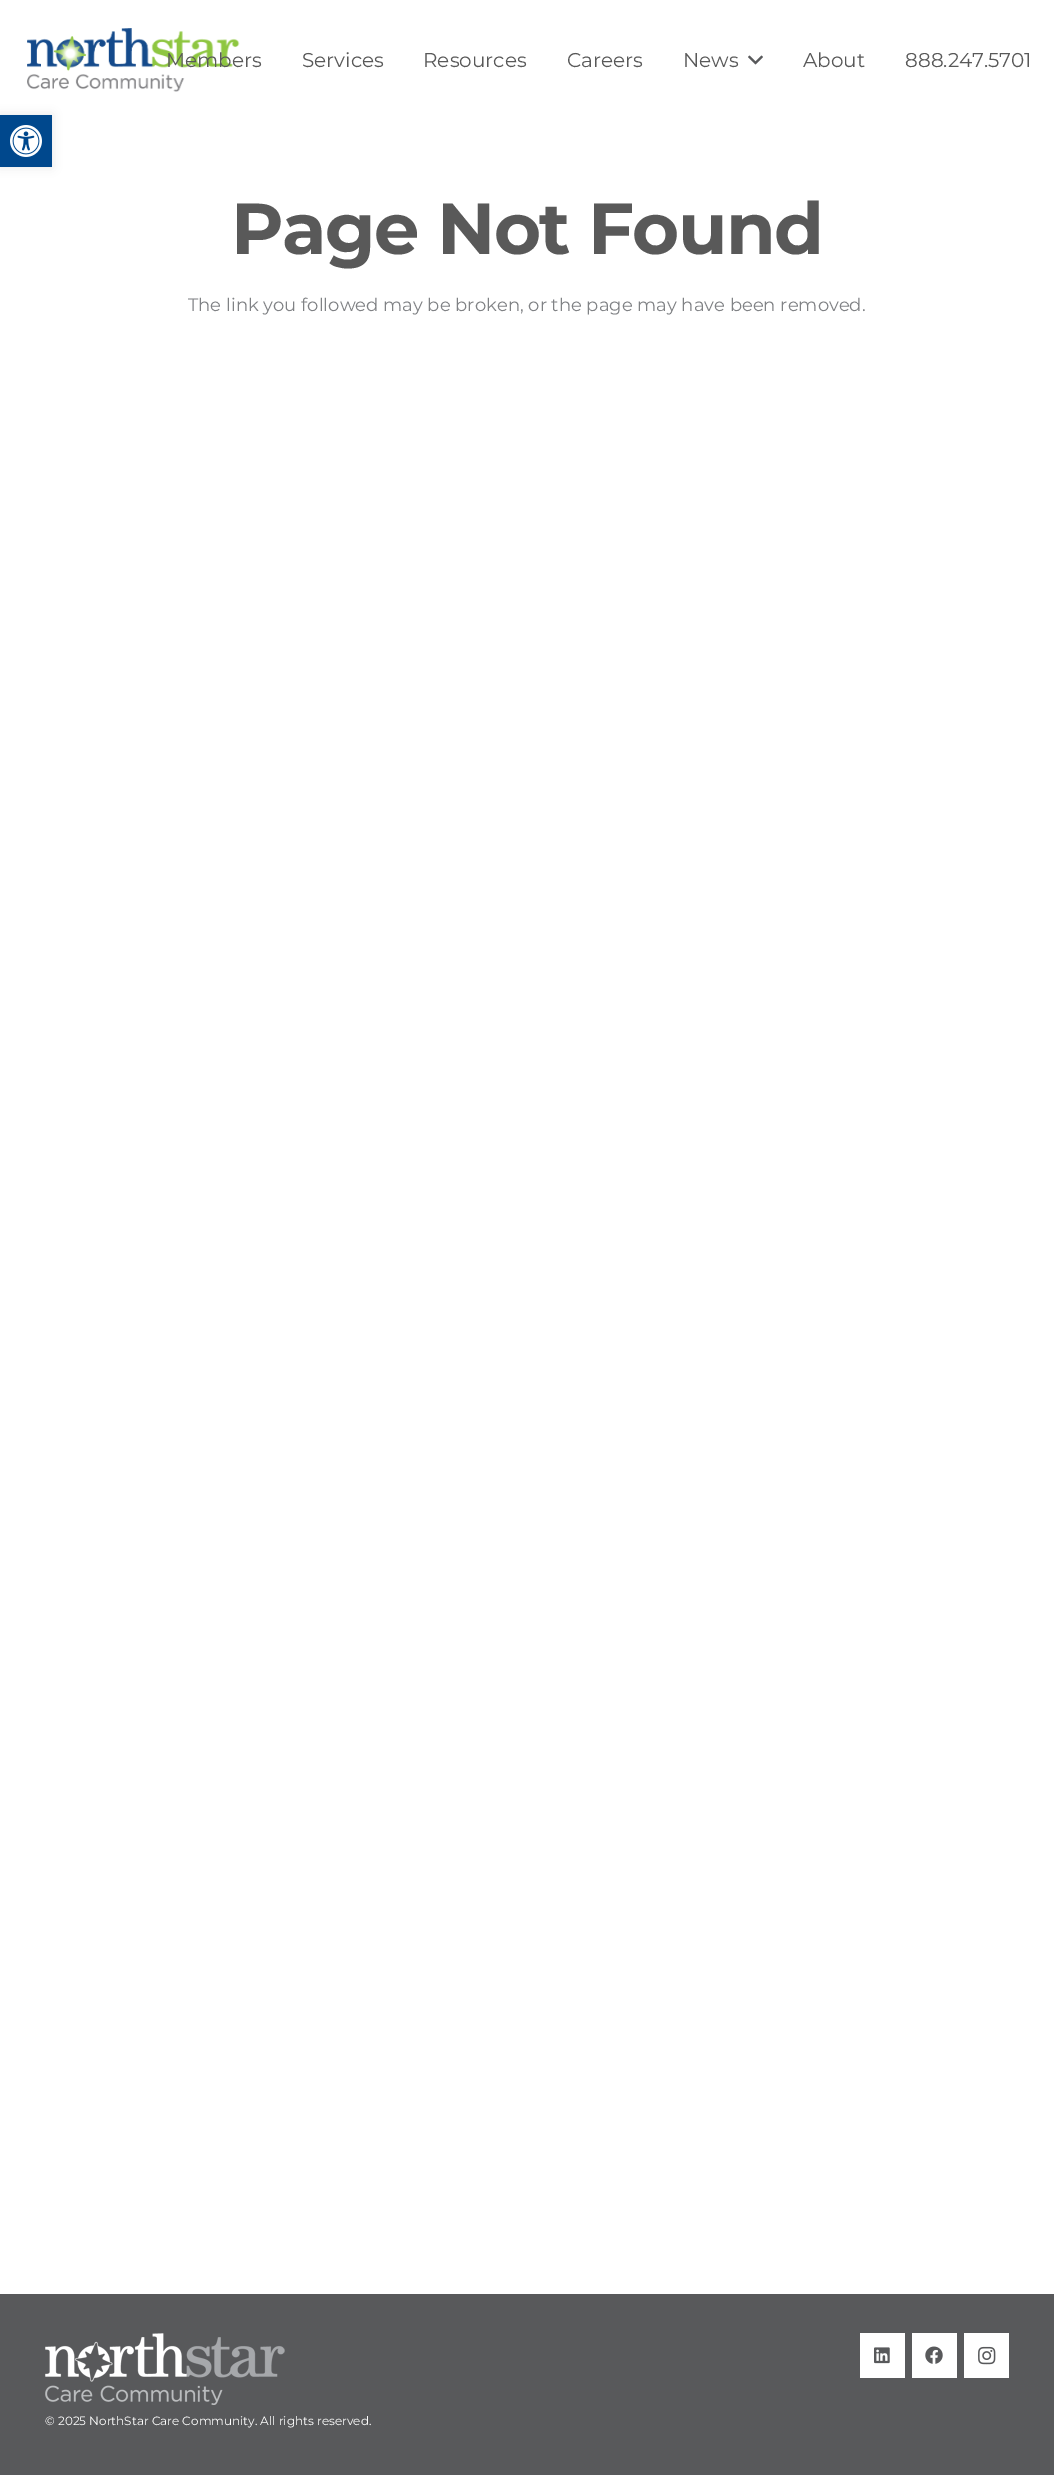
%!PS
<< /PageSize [1054 2475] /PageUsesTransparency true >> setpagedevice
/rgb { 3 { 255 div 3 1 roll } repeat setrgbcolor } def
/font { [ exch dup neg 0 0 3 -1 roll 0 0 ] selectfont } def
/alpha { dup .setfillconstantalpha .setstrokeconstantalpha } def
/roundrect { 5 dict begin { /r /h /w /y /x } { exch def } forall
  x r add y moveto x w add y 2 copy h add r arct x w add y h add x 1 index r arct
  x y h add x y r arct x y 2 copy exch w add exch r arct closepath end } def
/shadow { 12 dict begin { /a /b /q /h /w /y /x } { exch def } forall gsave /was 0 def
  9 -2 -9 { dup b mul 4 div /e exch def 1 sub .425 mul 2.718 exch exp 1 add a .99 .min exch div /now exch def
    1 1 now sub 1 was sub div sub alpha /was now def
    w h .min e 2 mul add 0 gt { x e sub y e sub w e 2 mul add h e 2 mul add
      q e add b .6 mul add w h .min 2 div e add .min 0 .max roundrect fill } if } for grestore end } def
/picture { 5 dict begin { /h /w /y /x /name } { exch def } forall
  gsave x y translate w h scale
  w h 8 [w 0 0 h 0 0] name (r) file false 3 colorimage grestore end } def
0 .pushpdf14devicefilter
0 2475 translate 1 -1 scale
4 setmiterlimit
88 89 91 rgb
0 0 1054 2475 rectfill
255 255 255 rgb
0 0 1054 2294 rectfill
0 0 0 rgb
0 115 52 52 0 5 0.1 shadow
0 72 141 rgb
0 115 52 52 rectfill
(img/1.rgb) 10 125 32 32 picture
(img/2.rgb) 27 28 213 64 picture
(img/3.rgb) 748 55 15 10 picture
255 255 255 rgb
860 2333 45 45 rectfill
(img/4.rgb) 874 2347 16 17 picture
912 2333 45 45 rectfill
(img/5.rgb) 925 2346 18 18 picture
964 2333 45 45 rectfill
(img/6.rgb) 978 2346 18 19 picture
(img/7.rgb) 45 2333 240 72 picture
/Montserrat-Regular 20 font
89 89 89 rgb
[
  [(Members) 166 67]
  [(Services) 302 67]
  [(Resources) 423 67]
  [(Careers) 567 67]
  [(News) 683 67]
  [(About) 803 67]
  [(888.247.5701) 905 67]
] { aload pop moveto show } forall
/Montserrat-Bold 72 font
231 254 moveto -1.5 0 (Page Not Found) ashow
/Montserrat-Regular 18 font
128 130 133 rgb
188 311 moveto (The link you followed may be broken, or the page may have been removed.) show
/Montserrat-Regular 12 font
255 255 255 rgb
45 2425 moveto (© 2025 NorthStar Care Community. All rights reserved.) show
.poppdf14devicefilter showpage
